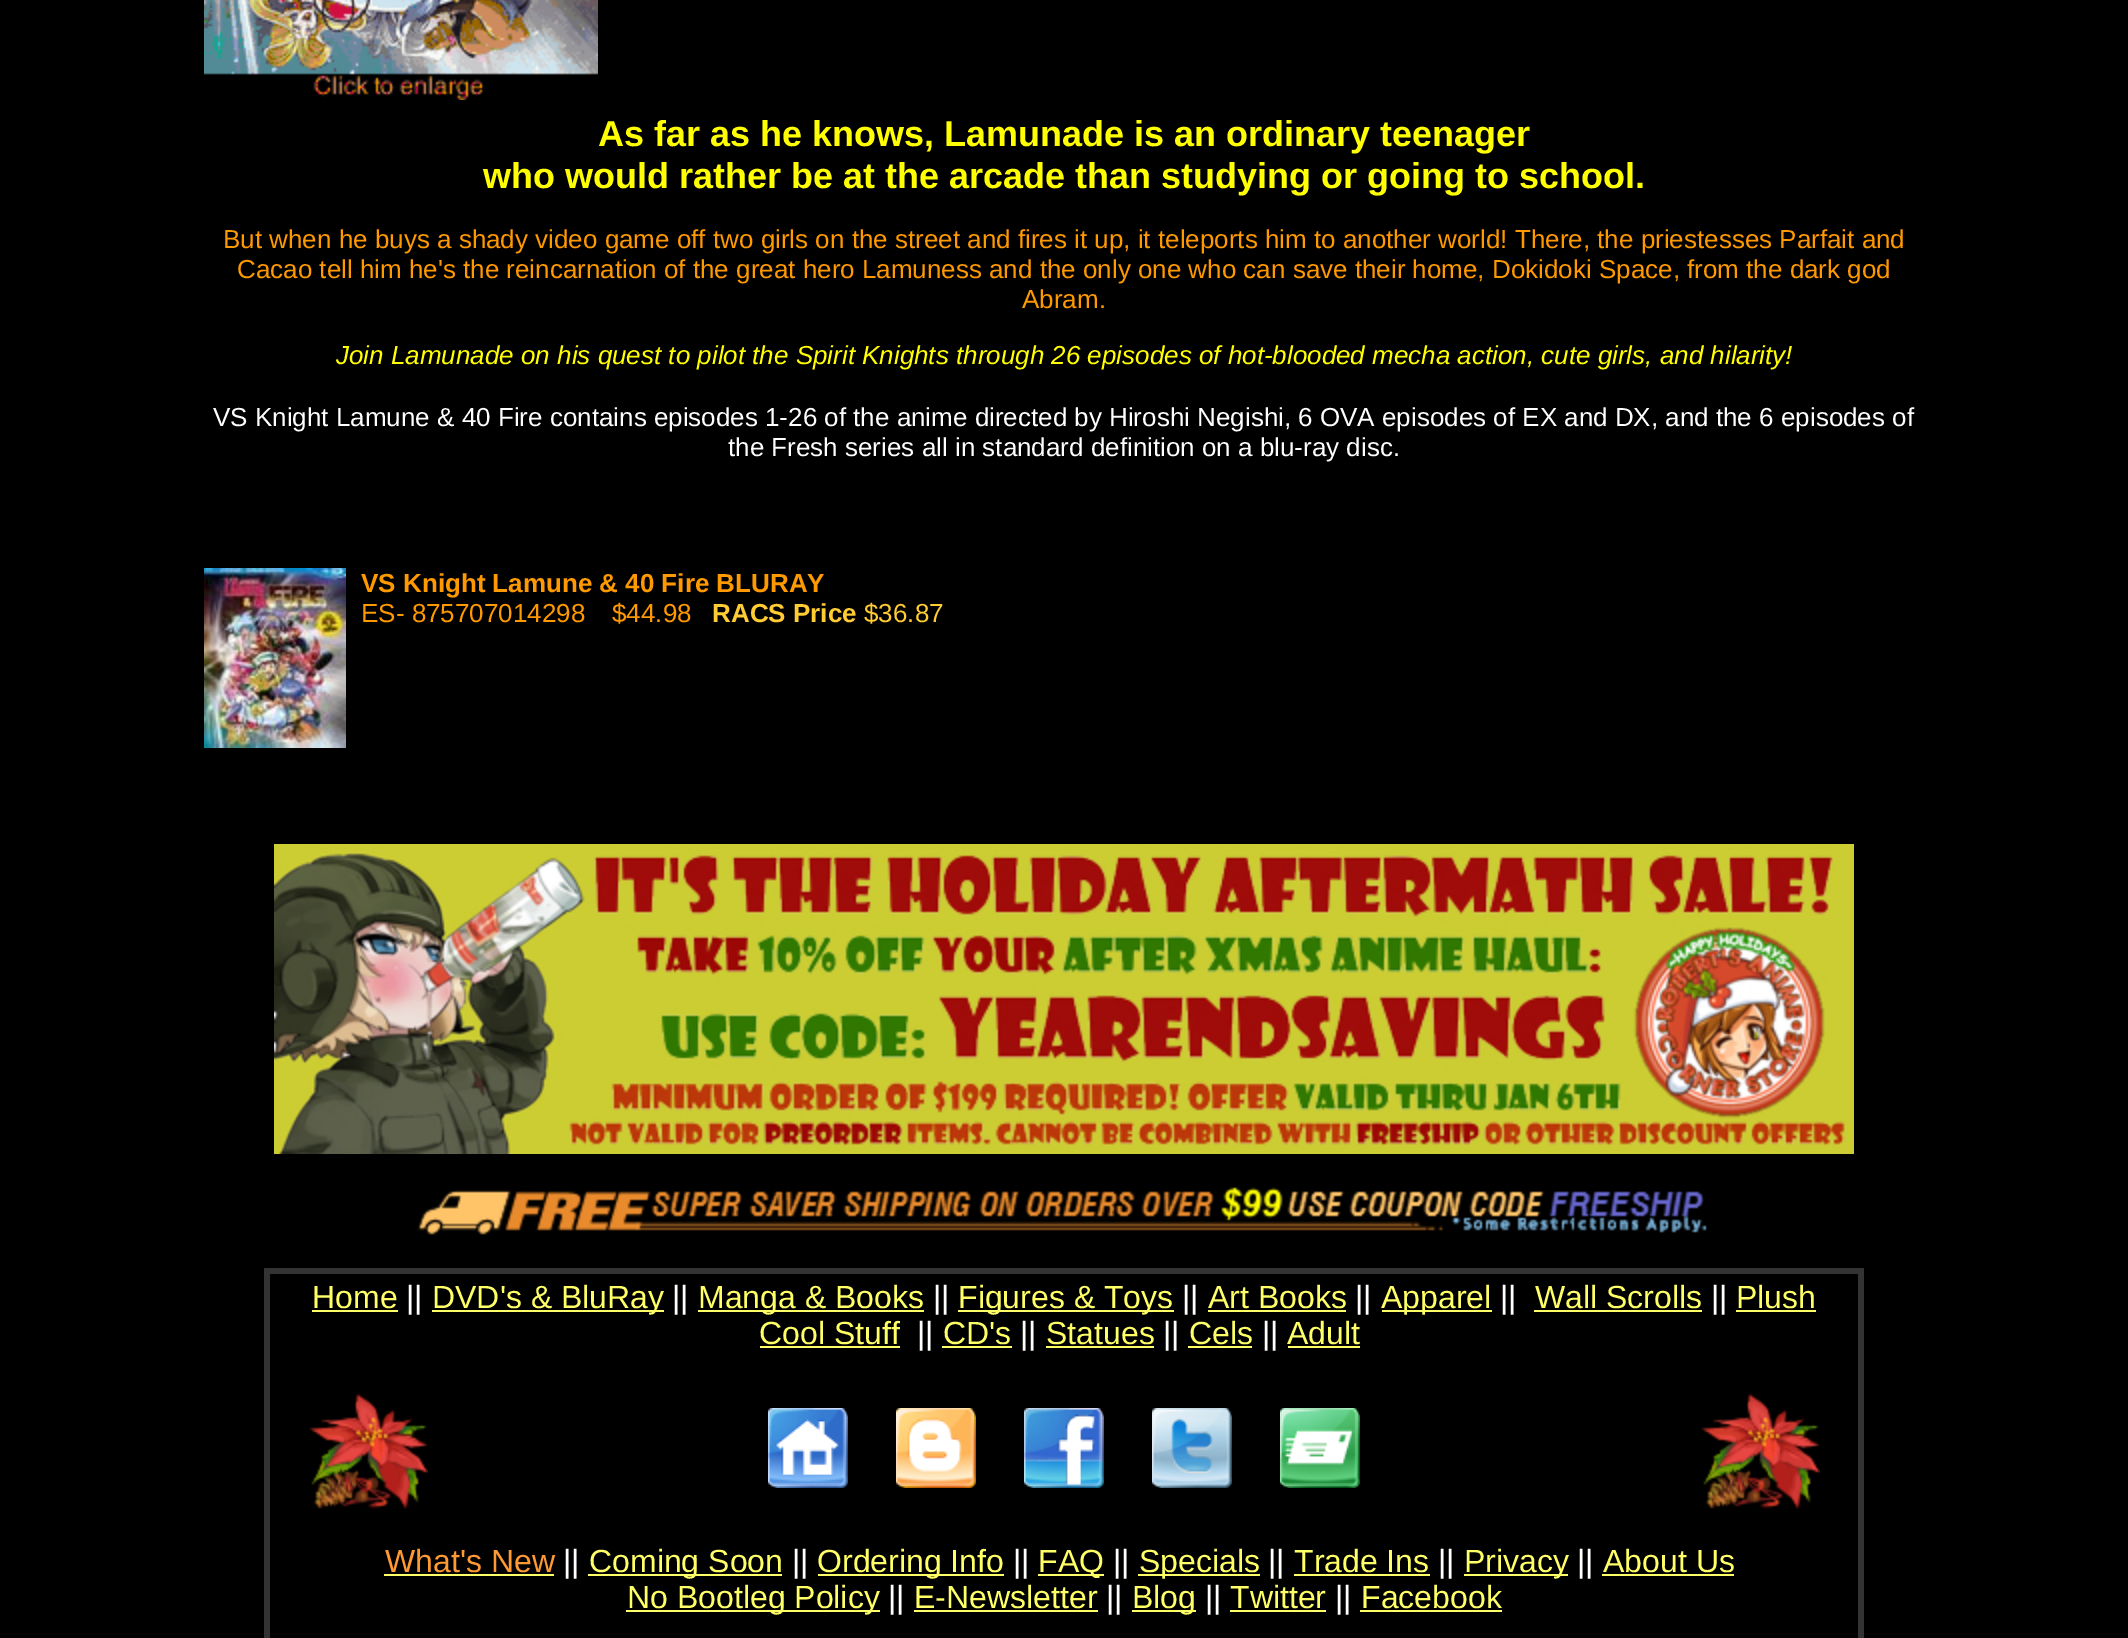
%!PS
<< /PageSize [2128 1638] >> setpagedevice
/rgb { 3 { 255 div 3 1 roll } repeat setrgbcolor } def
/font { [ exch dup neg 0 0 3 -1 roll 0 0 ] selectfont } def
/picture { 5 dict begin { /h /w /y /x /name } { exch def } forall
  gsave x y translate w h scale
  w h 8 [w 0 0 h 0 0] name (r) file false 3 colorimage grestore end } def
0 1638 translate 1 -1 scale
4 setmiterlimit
0 0 0 rgb
0 0 2128 1638 rectfill
(img/1.rgb) 204 0 394 100 picture
(img/2.rgb) 204 568 142 180 picture
(img/3.rgb) 274 844 1580 310 picture
(img/4.rgb) 417 1187 1290 48 picture
[
  [264 1268 1600 370 51 51 51]
  [270 1274 1588 364 0 0 0]
  [312 1310 86 2 255 255 102]
  [432 1310 232 2 255 255 102]
  [698 1310 226 2 255 255 102]
  [958 1310 216 2 255 255 102]
  [1208 1310 138 2 255 255 102]
  [1382 1310 110 2 255 255 102]
  [1534 1310 168 2 255 255 102]
  [1736 1310 80 2 255 255 102]
  [760 1346 140 2 255 255 102]
  [942 1346 70 2 255 255 102]
  [1046 1346 108 2 255 255 102]
  [1188 1346 64 2 255 255 102]
  [1288 1346 72 2 255 255 102]
] { aload pop rgb rectfill } forall
(img/5.rgb) 309 1393 119 117 picture
(img/6.rgb) 768 1408 80 80 picture
(img/7.rgb) 896 1408 80 80 picture
(img/8.rgb) 1024 1408 80 80 picture
(img/9.rgb) 1152 1408 80 80 picture
(img/10.rgb) 1280 1408 80 80 picture
(img/5.rgb) 1701 1393 119 117 picture
[
  [384 1574 170 2 255 255 102]
  [588 1574 194 2 255 255 102]
  [818 1574 186 2 255 255 102]
  [1038 1574 66 2 255 255 102]
  [1138 1574 122 2 255 255 102]
  [1294 1574 136 2 255 255 102]
  [1464 1574 104 2 255 255 102]
  [1602 1574 132 2 255 255 102]
  [626 1610 254 2 255 255 102]
  [914 1610 184 2 255 255 102]
  [1132 1610 64 2 255 255 102]
  [1230 1610 96 2 255 255 102]
  [1360 1610 142 2 255 255 102]
] { aload pop rgb rectfill } forall
/LiberationSans-Bold 36 font
255 255 0 rgb
598 146 moveto (As far as he knows, Lamunade is an ordinary teenager) show
483 188 moveto (who would rather be at the arcade than studying or going to school.) show
/LiberationSans-Regular 26 font
255 153 0 rgb
[
  [(But when he buys a shady video game off two girls on the street and fires it up, it teleports him to another world! There, the priestesses Parfait and) 223 248]
  [(Cacao tell him he's the reincarnation of the great hero Lamuness and the only one who can save their home, Dokidoki Space, from the dark god) 237 278]
  [(Abram.) 1022 308]
] { aload pop moveto show } forall
/LiberationSans-Italic 26 font
255 255 0 rgb
336 364 moveto (Join Lamunade on his quest to pilot the Spirit Knights through 26 episodes of hot-blooded mecha action, cute girls, and hilarity!) show
/LiberationSans-Regular 26 font
255 255 255 rgb
213 426 moveto (VS Knight Lamune & 40 Fire contains episodes 1-26 of the anime directed by Hiroshi Negishi, 6 OVA episodes of EX and DX, and the 6 episodes of) show
728 456 moveto (the Fresh series all in standard definition on a blu-ray disc.) show
/LiberationSans-Bold 26 font
255 153 0 rgb
361 592 moveto (VS Knight Lamune & 40 Fire BLURAY) show
/LiberationSans-Regular 26 font
361 622 moveto (ES- 875707014298) show
612 622 moveto ($44.98) show
/LiberationSans-Bold 26 font
255 204 51 rgb
712 622 moveto (RACS Price) show
/LiberationSans-Regular 26 font
864 622 moveto ($36.87) show
/LiberationSans-Regular 32 font
255 255 102 rgb
312 1308 moveto (Home) show
255 255 255 rgb
406 1308 moveto (||) show
255 255 102 rgb
432 1308 moveto (DVD's & BluRay) show
255 255 255 rgb
672 1308 moveto (||) show
255 255 102 rgb
698 1308 moveto (Manga & Books) show
255 255 255 rgb
933 1308 moveto (||) show
255 255 102 rgb
958 1308 moveto (Figures & Toys) show
255 255 255 rgb
1182 1308 moveto (||) show
255 255 102 rgb
1208 1308 moveto (Art Books) show
255 255 255 rgb
1355 1308 moveto (||) show
255 255 102 rgb
1381 1308 moveto (Apparel) show
255 255 255 rgb
1500 1308 moveto (||) show
255 255 102 rgb
1535 1308 moveto (Wall Scrolls) show
255 255 255 rgb
1711 1308 moveto (||) show
255 255 102 rgb
1736 1308 moveto (Plush) show
759 1344 moveto (Cool Stuff) show
255 255 255 rgb
917 1344 moveto (||) show
255 255 102 rgb
943 1344 moveto (CD's) show
255 255 255 rgb
1020 1344 moveto (||) show
255 255 102 rgb
1046 1344 moveto (Statues) show
255 255 255 rgb
1163 1344 moveto (||) show
255 255 102 rgb
1189 1344 moveto (Cels) show
255 255 255 rgb
1262 1344 moveto (||) show
255 255 102 rgb
1287 1344 moveto (Adult) show
255 153 51 rgb
385 1572 moveto (What's New) show
255 255 255 rgb
563 1572 moveto (||) show
255 255 102 rgb
589 1572 moveto (Coming Soon) show
255 255 255 rgb
792 1572 moveto (||) show
255 255 102 rgb
817 1572 moveto (Ordering Info) show
255 255 255 rgb
1013 1572 moveto (||) show
255 255 102 rgb
1038 1572 moveto (FAQ) show
255 255 255 rgb
1113 1572 moveto (||) show
255 255 102 rgb
1139 1572 moveto (Specials) show
255 255 255 rgb
1268 1572 moveto (||) show
255 255 102 rgb
1294 1572 moveto (Trade Ins) show
255 255 255 rgb
1438 1572 moveto (||) show
255 255 102 rgb
1464 1572 moveto (Privacy) show
255 255 255 rgb
1577 1572 moveto (||) show
255 255 102 rgb
1603 1572 moveto (About Us) show
627 1608 moveto (No Bootleg Policy) show
255 255 255 rgb
888 1608 moveto (||) show
255 255 102 rgb
914 1608 moveto (E-Newsletter) show
255 255 255 rgb
1106 1608 moveto (||) show
255 255 102 rgb
1132 1608 moveto (Blog) show
255 255 255 rgb
1205 1608 moveto (||) show
255 255 102 rgb
1230 1608 moveto (Twitter) show
255 255 255 rgb
1335 1608 moveto (||) show
255 255 102 rgb
1361 1608 moveto (Facebook) show
showpage
